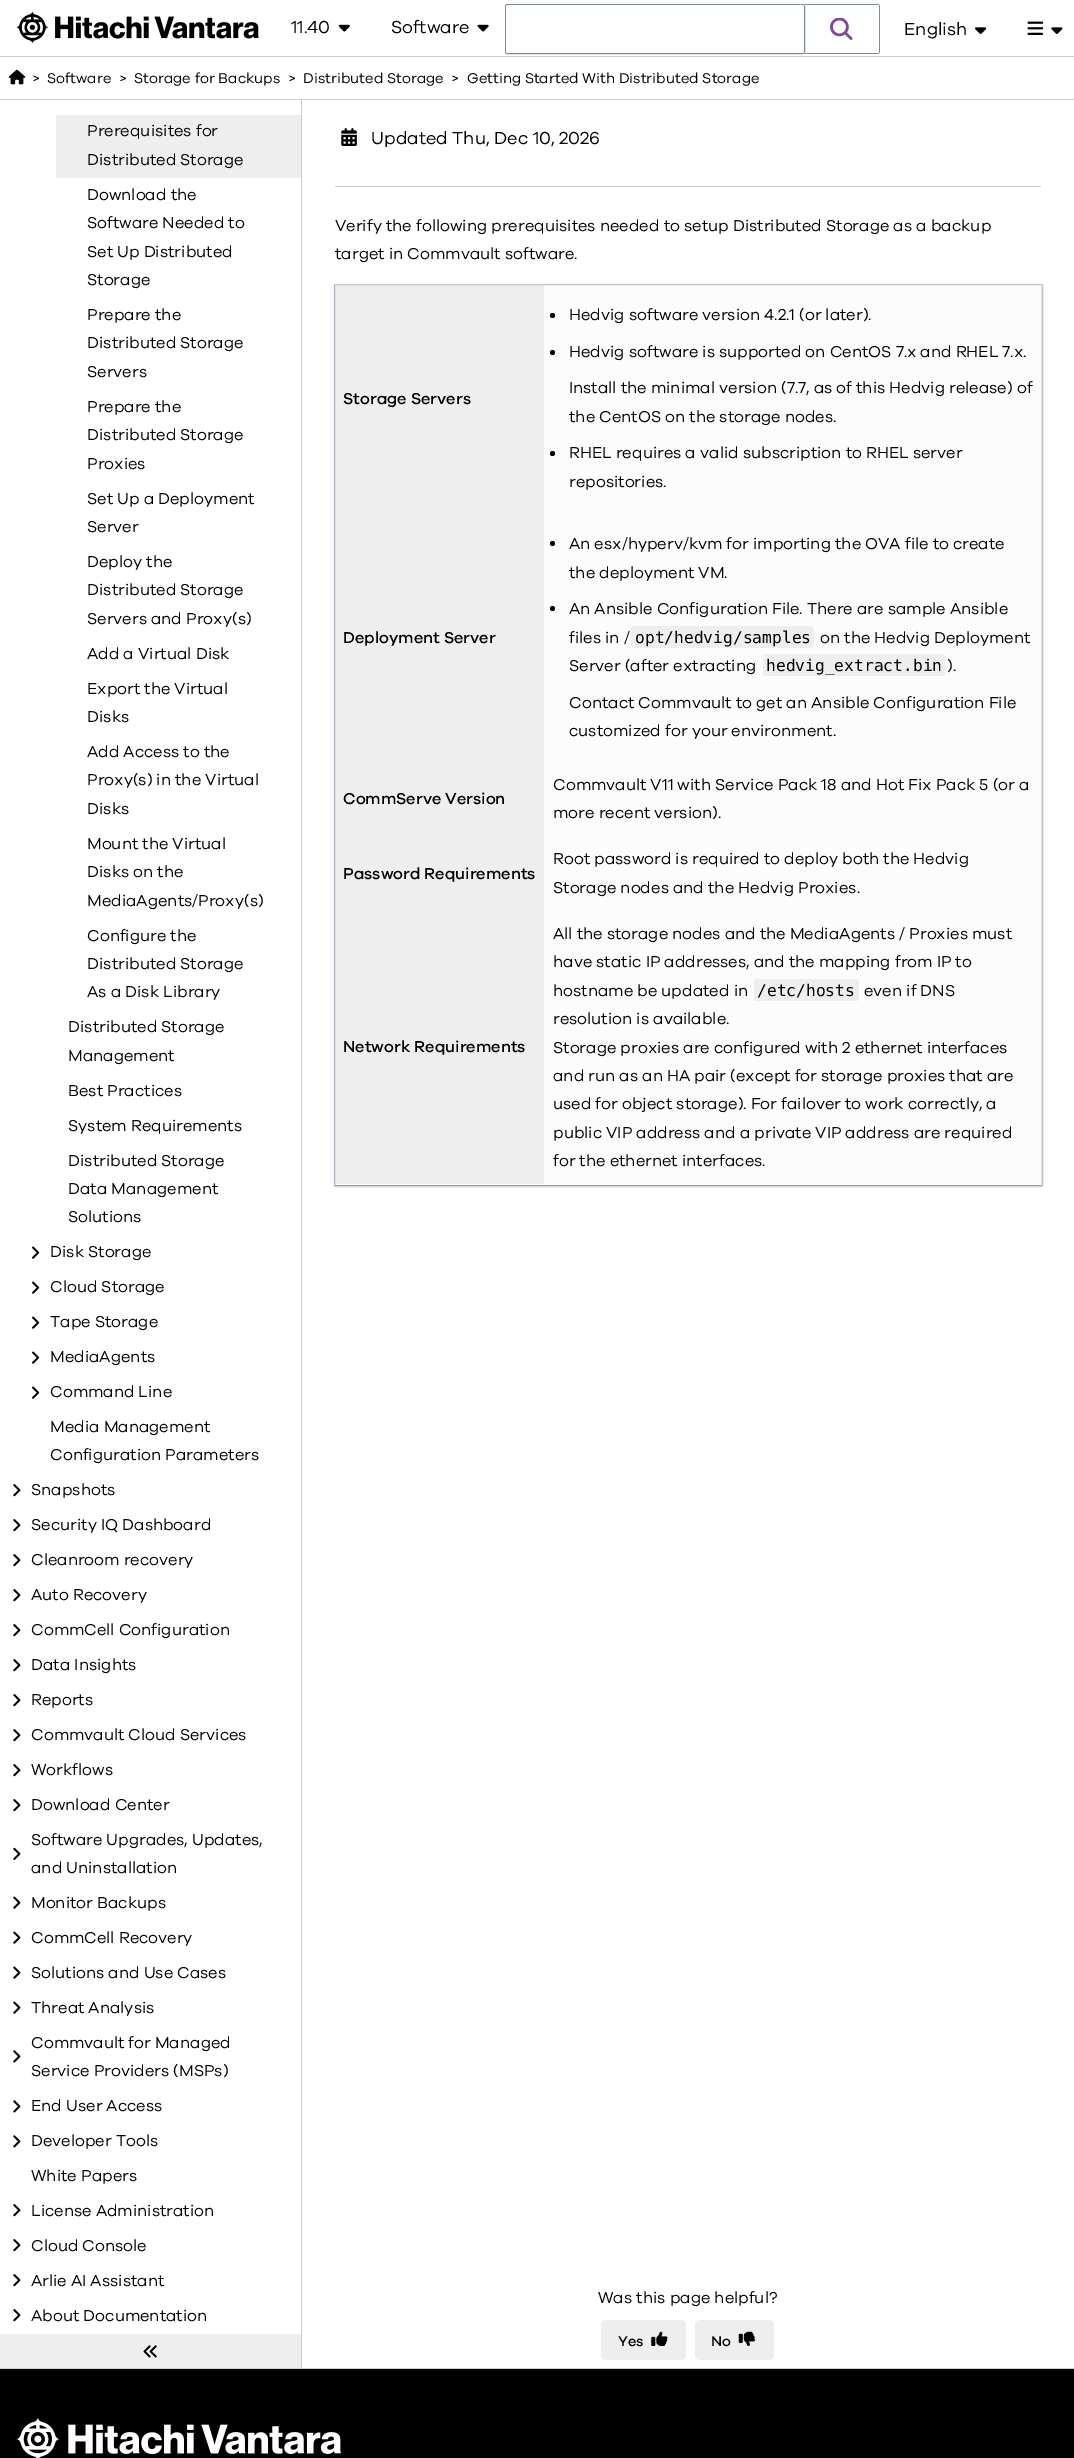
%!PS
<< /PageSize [1074 2458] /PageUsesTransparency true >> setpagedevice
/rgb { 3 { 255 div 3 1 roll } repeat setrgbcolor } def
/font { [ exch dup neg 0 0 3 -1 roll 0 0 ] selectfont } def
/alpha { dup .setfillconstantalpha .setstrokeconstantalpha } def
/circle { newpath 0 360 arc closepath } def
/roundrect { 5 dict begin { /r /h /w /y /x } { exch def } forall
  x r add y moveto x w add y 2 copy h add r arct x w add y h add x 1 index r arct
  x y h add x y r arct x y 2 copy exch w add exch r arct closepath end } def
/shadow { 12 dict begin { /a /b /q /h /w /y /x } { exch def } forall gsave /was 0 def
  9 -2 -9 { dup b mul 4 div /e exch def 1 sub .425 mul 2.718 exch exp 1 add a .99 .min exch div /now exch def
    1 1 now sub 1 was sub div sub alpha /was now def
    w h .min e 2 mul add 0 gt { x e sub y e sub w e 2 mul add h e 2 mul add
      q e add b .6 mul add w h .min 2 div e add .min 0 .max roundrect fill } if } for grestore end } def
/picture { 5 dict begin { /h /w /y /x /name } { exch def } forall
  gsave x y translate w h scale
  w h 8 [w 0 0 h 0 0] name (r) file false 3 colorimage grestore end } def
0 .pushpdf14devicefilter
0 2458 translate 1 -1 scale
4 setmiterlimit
255 255 255 rgb
0 0 1074 2458 rectfill
204 204 204 rgb
0 56 1074 1 rectfill
(img/1.rgb) 16 11 243 33 picture
(img/2.rgb) 338 24 12 8 picture
(img/3.rgb) 477 24 12 8 picture
126 140 154 rgb
505.5 4.5 299 49 2 roundrect stroke
255 255 255 rgb
506 5 298 48 2.5 roundrect fill
[
  [805 4 74 1 126 140 154]
  [879 5 1 48 126 140 154]
  [805 53 74 1 126 140 154]
] { aload pop rgb rectfill } forall
(img/4.rgb) 830 18 23 22 picture
(img/5.rgb) 975 27 12 7 picture
(img/6.rgb) 1027 21 17 14 picture
(img/7.rgb) 1051 27 12 7 picture
204 204 204 rgb
0 99 1074 1 rectfill
(img/8.rgb) 8 69 18 16 picture
(img/9.rgb) 341 128 16 18 picture
335 186 706 1 rectfill
0 0 0 rgb
335 286 706 900 0 1 0.24 shadow
335 286 706 900 0 2 0.12 shadow
252 252 252 rgb
335 285 706 900 rectfill
238 238 238 rgb
335 285 209 899 rectfill
0 0 0 rgb
552.5 315.5 2.5 circle fill
552.5 352.5 2.5 circle fill
552.5 453.5 2.5 circle fill
552.5 543.5 2.5 circle fill
552.5 608.5 2.5 circle fill
238 238 238 rgb
631 626 183 22 3 roundrect fill
763 654 182 22 3 roundrect fill
754 979 105 22 3 roundrect fill
0.2 alpha
0 5 59 rgb
334.5 284.5 708 901 rectstroke
1 alpha
238 238 238 rgb
601 2320 85 40 5 roundrect fill
(img/10.rgb) 651 2331 17 15 picture
695 2320 79 40 5 roundrect fill
(img/11.rgb) 738 2331 17 15 picture
56 115 245 63 rectfill
(img/12.rgb) 32 1246 8 13 picture
(img/12.rgb) 32 1281 8 13 picture
(img/12.rgb) 32 1316 8 13 picture
(img/12.rgb) 32 1351 8 13 picture
(img/12.rgb) 32 1386 8 13 picture
(img/13.rgb) 13 1484 8 13 picture
(img/13.rgb) 13 1519 8 13 picture
(img/13.rgb) 13 1554 8 13 picture
(img/13.rgb) 13 1589 8 13 picture
(img/13.rgb) 13 1624 8 13 picture
(img/13.rgb) 13 1659 8 13 picture
(img/13.rgb) 13 1694 8 13 picture
(img/13.rgb) 13 1729 8 13 picture
(img/13.rgb) 13 1764 8 13 picture
(img/13.rgb) 13 1799 8 13 picture
(img/14.rgb) 13 1847 8 13 picture
(img/15.rgb) 13 1896 8 13 picture
(img/15.rgb) 13 1931 8 13 picture
(img/15.rgb) 13 1966 8 13 picture
(img/15.rgb) 13 2001 8 13 picture
(img/16.rgb) 13 2050 8 13 picture
(img/16.rgb) 13 2100 8 13 picture
(img/16.rgb) 13 2135 8 13 picture
(img/13.rgb) 13 2204 8 13 picture
(img/13.rgb) 13 2239 8 13 picture
(img/13.rgb) 13 2274 8 13 picture
(img/13.rgb) 13 2309 8 13 picture
0 2334 301 34 rectfill
(img/17.rgb) 143 2345 14 13 picture
[
  [301 100 1 2268 204 204 204]
  [0 2369 1074 89 0 0 0]
  [0 2368 1074 1 204 204 204]
] { aload pop rgb rectfill } forall
(img/18.rgb) 16 2418 325 40 picture
/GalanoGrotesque-Regular 17.9 font
0 0 0 rgb
[
  [(11.40) 291 33]
  [(Software) 391 33]
  [(English) 904 35]
] { aload pop moveto show } forall
/GalanoGrotesque-Regular 14.6 font
[
  [(>) 33 83]
  [(Software) 47 83]
  [(>) 120 83]
  [(Storage for Backups) 134 83]
  [(>) 289 83]
  [(Distributed Storage) 303 83]
  [(>) 452 83]
  [(Getting Started With Distributed Storage) 467 83]
] { aload pop moveto show } forall
/GalanoGrotesque-Regular 17.9 font
371 144 moveto (Updated Thu, Dec 10, 2026) show
/GalanoGrotesque-Regular 16.25 font
335 231 moveto (Verify the following prerequisites needed to setup Distributed Storage as a backup) show
335 259 moveto (target in Commvault software.) show
/GalanoGrotesque-Medium 16.25 font
343 404 moveto (Storage Servers) show
/GalanoGrotesque-Regular 16.25 font
[
  [(Hedvig software version 4.2.1 \(or later\).) 569 320]
  [(Hedvig software is supported on CentOS 7.x and RHEL 7.x.) 569 357]
  [(Install the minimal version \(7.7, as of this Hedvig release\) of) 569 393]
  [(the CentOS on the storage nodes.) 569 422]
  [(RHEL requires a valid subscription to RHEL server) 569 458]
  [(repositories.) 569 487]
] { aload pop moveto show } forall
/GalanoGrotesque-Medium 16.25 font
343 643 moveto (Deployment Server) show
/GalanoGrotesque-Regular 16.25 font
[
  [(An esx/hyperv/kvm for importing the OVA file to create) 569 549]
  [(the deployment VM.) 569 578]
  [(An Ansible Configuration File. There are sample Ansible) 569 614]
  [(files in /) 569 643]
] { aload pop moveto show } forall
/DejaVuSansMono-Regular 16.25 font
635 643 moveto (opt/hedvig/samples) show
/GalanoGrotesque-Regular 16.25 font
820 643 moveto (on the Hedvig Deployment) show
569 671 moveto (Server \(after extracting) show
/DejaVuSansMono-Regular 16.25 font
766 671 moveto (hedvig_extract.bin) show
/GalanoGrotesque-Regular 16.25 font
[
  [(\).) 947 671]
  [(Contact Commvault to get an Ansible Configuration File) 569 708]
  [(customized for your environment.) 569 736]
] { aload pop moveto show } forall
/GalanoGrotesque-Medium 16.25 font
343 804 moveto (CommServe Version) show
/GalanoGrotesque-Regular 16.25 font
553 790 moveto (Commvault V11 with Service Pack 18 and Hot Fix Pack 5 \(or a) show
553 818 moveto (more recent version\).) show
/GalanoGrotesque-Medium 16.25 font
343 879 moveto (Password Requirements) show
/GalanoGrotesque-Regular 16.25 font
553 864 moveto (Root password is required to deploy both the Hedvig) show
553 893 moveto (Storage nodes and the Hedvig Proxies.) show
/GalanoGrotesque-Medium 16.25 font
343 1052 moveto (Network Requirements) show
/GalanoGrotesque-Regular 16.25 font
[
  [(All the storage nodes and the MediaAgents / Proxies must) 553 939]
  [(have static IP addresses, and the mapping from IP to) 553 967]
  [(hostname be updated in) 553 996]
] { aload pop moveto show } forall
/DejaVuSansMono-Regular 16.25 font
757 996 moveto (/etc/hosts) show
/GalanoGrotesque-Regular 16.25 font
[
  [(even if DNS) 864 996]
  [(resolution is available.) 553 1024]
  [(Storage proxies are configured with 2 ethernet interfaces) 553 1053]
  [(and run as an HA pair \(except for storage proxies that are) 553 1081]
  [(used for object storage\). For failover to work correctly, a) 553 1109]
  [(public VIP address and a private VIP address are required) 553 1138]
  [(for the ethernet interfaces.) 553 1166]
  [(Was this page helpful?) 598 2303]
] { aload pop moveto show } forall
/GalanoGrotesque-Medium 14.6 font
618 2346 moveto (Yes) show
711 2346 moveto (No) show
/GalanoGrotesque-Regular 16.25 font
[
  [(Prerequisites for) 87 136]
  [(Distributed Storage) 87 165]
  [(Download the) 87 200]
  [(Software Needed to) 87 228]
  [(Set Up Distributed) 87 257]
  [(Storage) 87 285]
  [(Prepare the) 87 320]
  [(Distributed Storage) 87 348]
  [(Servers) 87 377]
  [(Prepare the) 87 412]
  [(Distributed Storage) 87 440]
  [(Proxies) 87 469]
  [(Set Up a Deployment) 87 504]
  [(Server) 87 532]
  [(Deploy the) 87 567]
  [(Distributed Storage) 87 595]
  [(Servers and Proxy\(s\)) 87 624]
  [(Add a Virtual Disk) 87 659]
  [(Export the Virtual) 87 694]
  [(Disks) 87 722]
  [(Add Access to the) 87 757]
  [(Proxy\(s\) in the Virtual) 87 785]
  [(Disks) 87 814]
  [(Mount the Virtual) 87 849]
  [(Disks on the) 87 877]
  [(MediaAgents/Proxy\(s\)) 87 906]
  [(Configure the) 87 941]
  [(Distributed Storage) 87 969]
  [(As a Disk Library) 87 997]
  [(Distributed Storage) 68 1032]
  [(Management) 68 1061]
  [(Best Practices) 68 1096]
  [(System Requirements) 68 1131]
  [(Distributed Storage) 68 1166]
  [(Data Management) 68 1194]
  [(Solutions) 68 1222]
  [(Disk Storage) 50 1257]
  [(Cloud Storage) 50 1292]
  [(Tape Storage) 50 1327]
  [(MediaAgents) 50 1362]
  [(Command Line) 50 1397]
  [(Media Management) 50 1432]
  [(Configuration Parameters) 50 1460]
  [(Snapshots) 31 1495]
  [(Security IQ Dashboard) 31 1530]
  [(Cleanroom recovery) 31 1565]
  [(Auto Recovery) 31 1600]
  [(CommCell Configuration) 31 1635]
  [(Data Insights) 31 1670]
  [(Reports) 31 1705]
  [(Commvault Cloud Services) 31 1740]
  [(Workflows) 31 1775]
  [(Download Center) 31 1810]
  [(Software Upgrades, Updates,) 31 1845]
  [(and Uninstallation) 31 1873]
  [(Monitor Backups) 31 1908]
  [(CommCell Recovery) 31 1943]
  [(Solutions and Use Cases) 31 1978]
  [(Threat Analysis) 31 2013]
  [(Commvault for Managed) 31 2048]
  [(Service Providers \(MSPs\)) 31 2076]
  [(End User Access) 31 2111]
  [(Developer Tools) 31 2146]
  [(White Papers) 31 2181]
  [(License Administration) 31 2216]
  [(Cloud Console) 31 2251]
  [(Arlie AI Assistant) 31 2286]
  [(About Documentation) 31 2321]
] { aload pop moveto show } forall
.poppdf14devicefilter showpage
